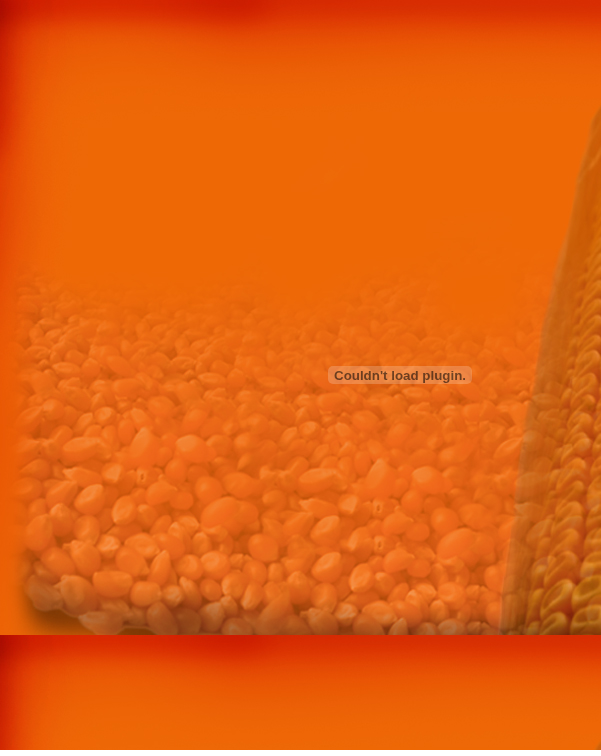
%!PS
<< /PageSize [601 756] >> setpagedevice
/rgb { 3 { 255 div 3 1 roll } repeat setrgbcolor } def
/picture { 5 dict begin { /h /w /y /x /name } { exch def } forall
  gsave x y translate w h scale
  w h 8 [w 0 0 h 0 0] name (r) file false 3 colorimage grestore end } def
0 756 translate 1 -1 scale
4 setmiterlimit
255 255 255 rgb
0 0 601 756 rectfill
(img/1.rgb) 0 0 601 750 picture
(img/2.rgb) 328 366 144 18 picture
showpage
